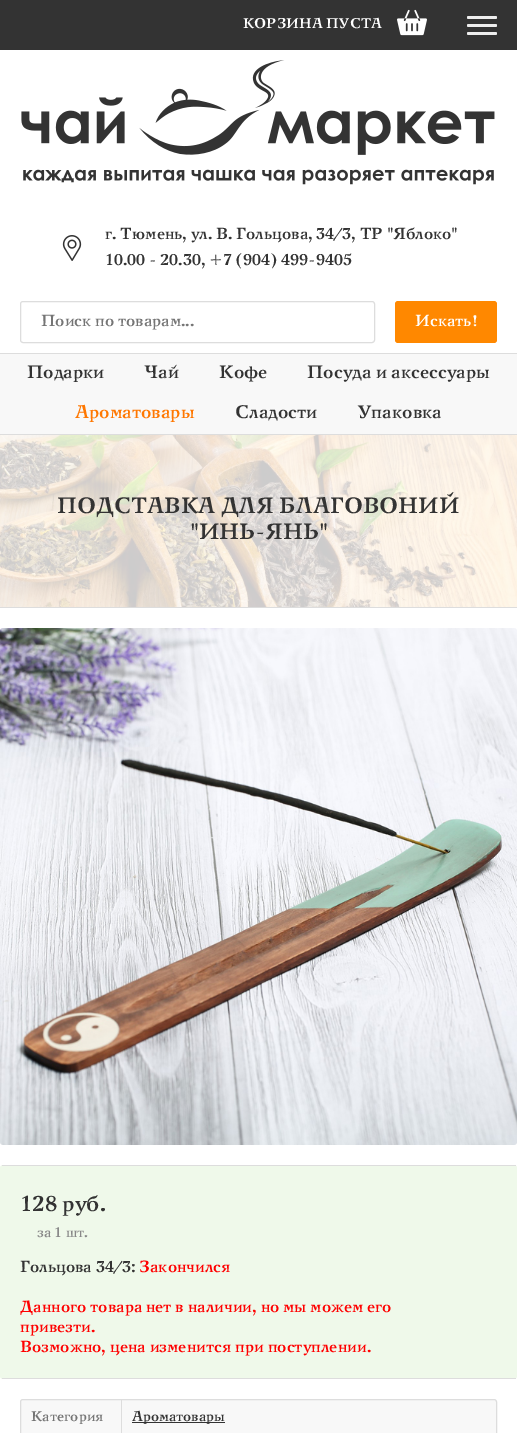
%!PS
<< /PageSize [517 1433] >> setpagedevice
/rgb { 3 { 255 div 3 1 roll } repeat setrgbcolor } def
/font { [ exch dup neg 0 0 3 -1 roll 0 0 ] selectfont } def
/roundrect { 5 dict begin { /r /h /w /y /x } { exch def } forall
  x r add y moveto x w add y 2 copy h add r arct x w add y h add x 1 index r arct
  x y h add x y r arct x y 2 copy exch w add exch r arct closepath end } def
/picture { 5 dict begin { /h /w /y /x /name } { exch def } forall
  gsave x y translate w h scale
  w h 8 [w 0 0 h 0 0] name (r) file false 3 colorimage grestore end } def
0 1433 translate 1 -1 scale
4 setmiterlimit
255 255 255 rgb
0 0 517 1433 rectfill
51 51 51 rgb
0 0 517 50 rectfill
(img/1.rgb) 397 9 30 27 picture
238 238 238 rgb
467 16 30 3 1.5 roundrect fill
467 24 30 3 1.5 roundrect fill
467 32 30 3 1.5 roundrect fill
(img/2.rgb) 21 60 474 125 picture
(img/3.rgb) 62 235 20 26 picture
221 221 221 rgb
20.5 301.5 354 41 2.5 roundrect stroke
255 136 0 rgb
395 301 102 42 3 roundrect fill
[
  [0 354 517 80 248 248 248]
  [0 353 517 1 221 221 221]
  [0 434 517 1 221 221 221]
  [0 607 517 1 221 221 221]
] { aload pop rgb rectfill } forall
(img/4.rgb) 0 435 517 172 picture
(img/5.rgb) 0 628 517 517 picture
239 249 234 rgb
0 1165 517 214 3 roundrect fill
221 221 221 rgb
2 1165 514 1 rectfill
2 1378 514 1 rectfill
248 248 248 rgb
20.5 1399.5 476 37 2.5 roundrect gsave fill grestore
221 221 221 rgb
stroke
121 1400 1 33 rectfill
51 51 51 rgb
132 1422 93 1 rectfill
/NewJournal-Bold 14 font
255 255 255 rgb
243 28 moveto (КОРЗИНА ПУСТА) show
/NewJournal-Bold 16 font
51 51 51 rgb
105 239 moveto (г. Тюмень, ул. В. Гольцова, 34/3, ТР "Яблоко") show
105 265 moveto (10.00 - 20.30, +7 \(904\) 499-9405) show
117 117 117 rgb
41 326 moveto (Поиск по товарам...) show
255 255 255 rgb
415 326 moveto (Искать!) show
/NewJournal-Bold 18 font
51 51 51 rgb
[
  [(Подарки) 27 378]
  [(Чай) 144 378]
  [(Кофе) 219 378]
  [(Посуда и аксессуары) 307 378]
] { aload pop moveto show } forall
255 119 0 rgb
75 418 moveto (Ароматовары) show
51 51 51 rgb
235 418 moveto (Сладости) show
357 418 moveto (Упаковка) show
/NewJournal-Bold 22 font
[
  [(ПОДСТАВКА ДЛЯ БЛАГОВОНИЙ) 57 513]
  [("ИНЬ-ЯНЬ") 190 539]
  [(128 руб.) 20 1211]
] { aload pop moveto show } forall
/NewJournal-Bold 14 font
136 136 136 rgb
37 1237 moveto (за 1 шт.) show
/NewJournal-Bold 16 font
51 51 51 rgb
20 1272 moveto (Гольцова 34/3:) show
255 0 0 rgb
[
  [(Закончился) 139 1272]
  [(Данного товара нет в наличии, но мы можем его) 20 1312]
  [(привезти.) 20 1332]
  [(Возможно, цена изменится при поступлении.) 20 1352]
] { aload pop moveto show } forall
/NewJournal-Bold 14 font
117 117 117 rgb
31 1421 moveto (Категория) show
51 51 51 rgb
132 1421 moveto (Ароматовары) show
showpage
